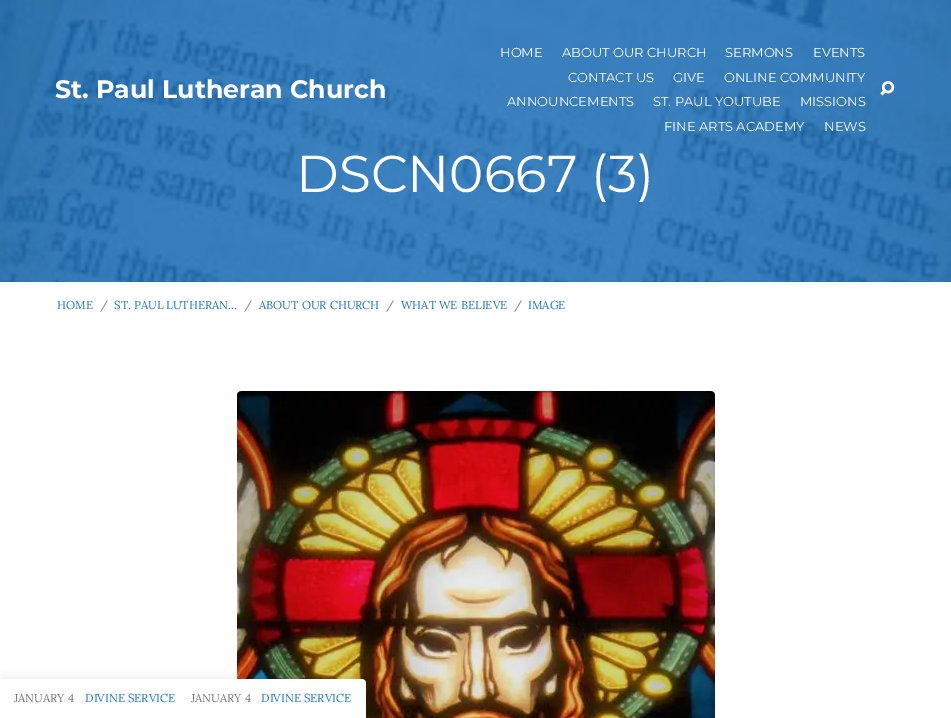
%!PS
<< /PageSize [951 718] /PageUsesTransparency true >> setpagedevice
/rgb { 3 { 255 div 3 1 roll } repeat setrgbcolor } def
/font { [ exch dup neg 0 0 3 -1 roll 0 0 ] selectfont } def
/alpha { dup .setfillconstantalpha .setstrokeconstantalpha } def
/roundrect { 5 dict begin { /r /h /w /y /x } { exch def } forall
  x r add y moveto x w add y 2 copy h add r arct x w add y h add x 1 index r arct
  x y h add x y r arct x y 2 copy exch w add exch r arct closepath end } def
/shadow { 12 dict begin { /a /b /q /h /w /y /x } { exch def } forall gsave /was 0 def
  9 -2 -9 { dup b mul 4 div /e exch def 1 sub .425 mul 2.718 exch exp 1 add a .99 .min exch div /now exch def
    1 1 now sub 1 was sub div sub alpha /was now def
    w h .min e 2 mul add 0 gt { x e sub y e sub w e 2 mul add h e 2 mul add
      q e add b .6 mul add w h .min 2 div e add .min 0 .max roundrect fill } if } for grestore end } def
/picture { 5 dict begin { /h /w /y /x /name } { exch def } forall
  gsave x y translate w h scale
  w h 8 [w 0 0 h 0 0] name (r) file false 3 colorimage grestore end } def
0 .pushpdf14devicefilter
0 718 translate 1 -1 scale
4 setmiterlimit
255 255 255 rgb
0 0 951 718 rectfill
30 115 190 rgb
0 0 951 282 rectfill
(img/2.rgb) 0 0 951 282 picture
(img/1.rgb) 880 81 15 15 picture
(img/3.rgb) 237 391 478 327 picture
0 0 0 rgb
0 681 366 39 4 6 0.15 shadow
255 255 255 rgb
0 679 moveto 362 679 lineto 364 679 366 681 366 683 curveto 366 718 lineto 0 718 lineto closepath fill
/Montserrat-Bold 25.25 font
55 98 moveto (St. Paul Lutheran Church) show
/Montserrat-Regular 13 font
[
  [(HOME) 500 57]
  [(ABOUT OUR CHURCH) 562 57]
  [(SERMONS) 725 57]
  [(EVENTS) 813 57]
  [(CONTACT US) 568 82]
  [(GIVE) 673 82]
  [(ONLINE COMMUNITY) 724 82]
  [(ANNOUNCEMENTS) 507 106]
  [(ST. PAUL YOUTUBE) 653 106]
  [(MISSIONS) 800 106]
  [(FINE ARTS ACADEMY) 664 131]
  [(NEWS) 824 131]
] { aload pop moveto show } forall
/Montserrat-Regular 51.75 font
296 192 moveto (DSCN0667 \(3\)) show
/Lora-Regular 11.5 font
30 115 190 rgb
57 309 moveto (HOME) show
119 119 119 rgb
100 309 moveto (/) show
30 115 190 rgb
114 309 moveto (ST. PAUL LUTHERAN…) show
119 119 119 rgb
244 309 moveto (/) show
30 115 190 rgb
259 309 moveto (ABOUT OUR CHURCH) show
119 119 119 rgb
386 309 moveto (/) show
30 115 190 rgb
401 309 moveto (WHAT WE BELIEVE) show
119 119 119 rgb
514 309 moveto (/) show
30 115 190 rgb
528 309 moveto (IMAGE) show
119 119 119 rgb
14 702 moveto (JANUARY 4) show
30 115 190 rgb
85 702 moveto (DIVINE SERVICE) show
119 119 119 rgb
191 702 moveto (JANUARY 4) show
30 115 190 rgb
261 702 moveto (DIVINE SERVICE) show
.poppdf14devicefilter showpage
